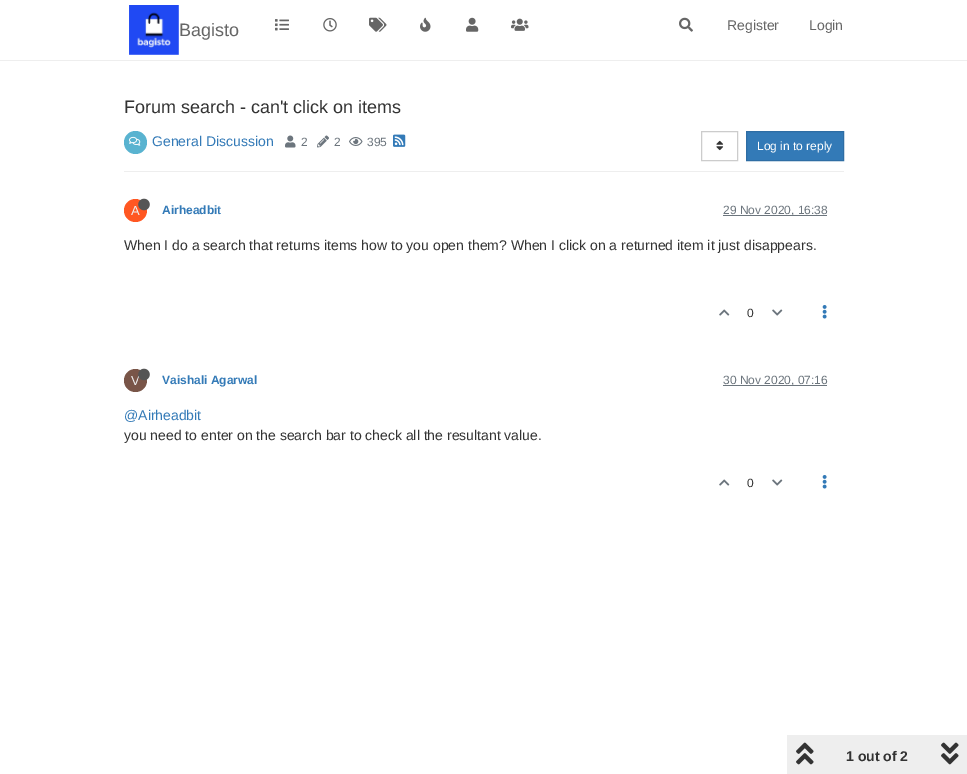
%!PS
<< /PageSize [967 774] >> setpagedevice
/rgb { 3 { 255 div 3 1 roll } repeat setrgbcolor } def
/font { [ exch dup neg 0 0 3 -1 roll 0 0 ] selectfont } def
/circle { newpath 0 360 arc closepath } def
/picture { 5 dict begin { /h /w /y /x /name } { exch def } forall
  gsave x y translate w h scale
  w h 8 [w 0 0 h 0 0] name (r) file false 3 colorimage grestore end } def
0 774 translate 1 -1 scale
4 setmiterlimit
255 255 255 rgb
0 0 967 774 rectfill
238 238 238 rgb
0 60 967 1 rectfill
(img/1.rgb) 129 5 50 50 picture
(img/2.rgb) 275 19 14 12 picture
(img/3.rgb) 323 18 14 14 picture
(img/4.rgb) 369 17 18 15 picture
(img/5.rgb) 420 17 11 15 picture
(img/6.rgb) 466 17 13 15 picture
(img/7.rgb) 511 18 18 13 picture
(img/8.rgb) 679 17 14 15 picture
124 171 720 1 rectfill
89 179 208 rgb
135.5 142.5 11.5 circle fill
(img/9.rgb) 129 136 12 10 picture
(img/10.rgb) 285 135 11 13 picture
(img/11.rgb) 317 135 12 13 picture
(img/12.rgb) 349 137 14 9 picture
(img/13.rgb) 393 134 13 13 picture
204 204 204 rgb
701.5 131.5 36 29 rectstroke
(img/14.rgb) 716 140 8 11 picture
51 122 183 rgb
746.5 131.5 moveto 843.5 131.5 lineto 843.5 160.5 lineto 746.5 160.5 lineto closepath gsave fill grestore
46 109 164 rgb
stroke
255 87 34 rgb
135.5 210.5 11.5 circle fill
108 117 125 rgb
723 215 104 1 rectfill
(img/16.rgb) 719 309 11 7 picture
(img/17.rgb) 772 309 11 7 picture
(img/18.rgb) 822 305 5 14 picture
121 85 72 rgb
135.5 380.5 11.5 circle fill
108 117 125 rgb
723 385 104 1 rectfill
(img/16.rgb) 719 479 11 7 picture
(img/17.rgb) 772 479 11 7 picture
(img/18.rgb) 822 475 5 14 picture
238 238 238 rgb
787 735 180 39 rectfill
(img/20.rgb) 796 742 18 23 picture
(img/21.rgb) 941 742 18 23 picture
/LiberationSans-Regular 18 font
102 102 102 rgb
179 36 moveto (Bagisto) show
/LiberationSans-Regular 14 font
727 30 moveto (Register) show
809 30 moveto (Login) show
/LiberationSans-Regular 18 font
51 51 51 rgb
124 113 moveto (Forum search - can't click on items) show
/LiberationSans-Regular 14 font
51 122 183 rgb
152 146 moveto (General Discussion) show
/LiberationSans-Regular 12 font
108 117 125 rgb
[
  [(2) 301 146]
  [(2) 334 146]
  [(395) 367 146]
] { aload pop moveto show } forall
255 255 255 rgb
757 150 moveto (Log in to reply) show
/LiberationSans-Regular 13 font
238 238 238 rgb
131 215 moveto (A) show
(img/15.rgb) 138 198 12 13 picture
/LiberationSans-Bold 12 font
51 122 183 rgb
162 214 moveto (Airheadbit) show
/LiberationSans-Regular 12 font
108 117 125 rgb
723 214 moveto (29 Nov 2020, 16:38) show
/LiberationSans-Regular 14 font
51 51 51 rgb
124 250 moveto (When I do a search that returns items how to you open them? When I click on a returned item it just disappears.) show
/LiberationSans-Regular 12 font
747 317 moveto (0) show
/LiberationSans-Regular 13 font
238 238 238 rgb
131 385 moveto (V) show
(img/19.rgb) 138 368 12 13 picture
/LiberationSans-Bold 12 font
51 122 183 rgb
162 384 moveto (Vaishali Agarwal) show
/LiberationSans-Regular 12 font
108 117 125 rgb
723 384 moveto (30 Nov 2020, 07:16) show
/LiberationSans-Regular 14 font
51 122 183 rgb
124 420 moveto (@Airheadbit) show
51 51 51 rgb
124 440 moveto (you need to enter on the search bar to check all the resultant value.) show
/LiberationSans-Regular 12 font
747 487 moveto (0) show
/LiberationSans-Bold 14 font
846 761 moveto (1 out of 2) show
showpage
